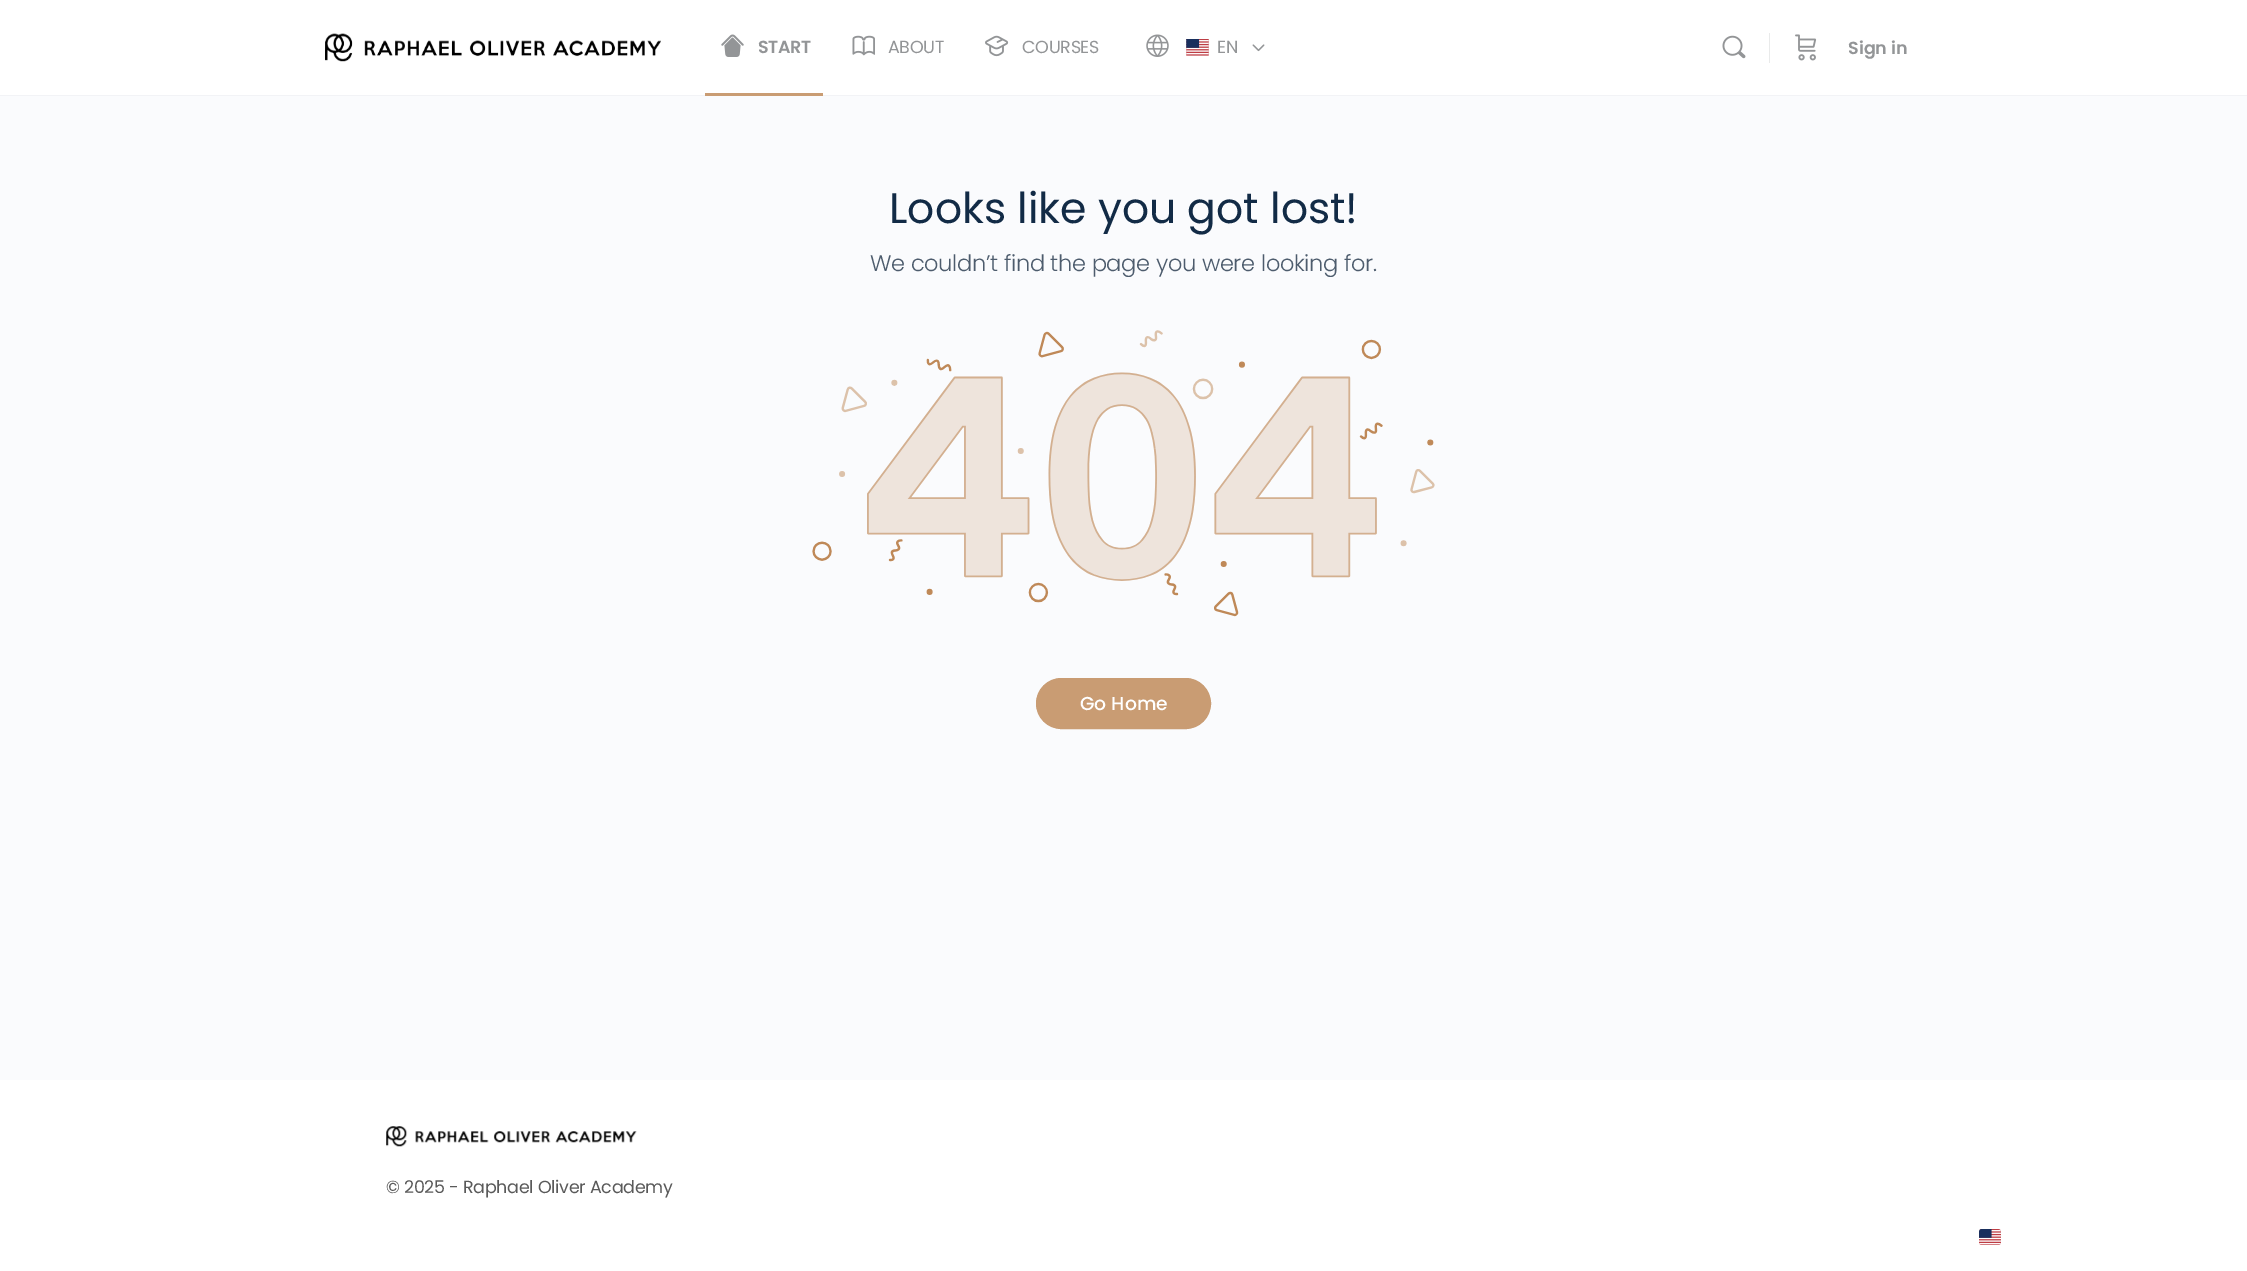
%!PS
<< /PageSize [2247 1271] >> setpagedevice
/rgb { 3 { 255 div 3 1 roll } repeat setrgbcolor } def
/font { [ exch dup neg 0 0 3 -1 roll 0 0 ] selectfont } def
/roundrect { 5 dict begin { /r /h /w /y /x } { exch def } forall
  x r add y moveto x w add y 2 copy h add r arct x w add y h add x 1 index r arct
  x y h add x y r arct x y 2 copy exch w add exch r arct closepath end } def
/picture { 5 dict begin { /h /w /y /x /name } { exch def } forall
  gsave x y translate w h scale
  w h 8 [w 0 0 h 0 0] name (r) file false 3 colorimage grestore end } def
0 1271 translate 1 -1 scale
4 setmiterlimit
250 251 253 rgb
0 0 2247 1271 rectfill
242 243 246 rgb
0 95 moveto 0 96 lineto 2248 96 lineto 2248 1 lineto 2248 95 lineto closepath fill
255 255 255 rgb
0 0 2247 95 rectfill
(img/1.rgb) 325 33 336 29 picture
201 156 115 rgb
705 93 118 3 rectfill
(img/2.rgb) 721 34 23 23 picture
(img/3.rgb) 852 35 23 21 picture
(img/4.rgb) 985 35 24 22 picture
(img/5.rgb) 1146 34 23 23 picture
(img/6.rgb) 1186 39 23 17 picture
(img/7.rgb) 1252 44 13 8 picture
(img/8.rgb) 1722 35 24 24 picture
233 234 234 rgb
1769 33 1 30 rectfill
(img/9.rgb) 1795 34 22 27 picture
(img/10.rgb) 812 330 623 287 picture
201 156 115 rgb
1036.5 678.5 174 50 25 roundrect gsave fill grestore
stroke
255 255 255 rgb
0 1080 2247 191 rectfill
(img/11.rgb) 386 1126 251 21 picture
(img/12.rgb) 1979 1229 22 16 picture
/Poppins-SemiBold 17.5 font
147 149 151 rgb
758 53 moveto -0.3 0 (START) ashow
/Poppins-Regular 17.5 font
888 53 moveto -0.3 0 (ABOUT) ashow
1022 53 moveto -0.3 0 (COURSES) ashow
1217 53 moveto -0.3 0 (EN) ashow
/Poppins-SemiBold 17.5 font
1848 54 moveto (Sign in) show
/Poppins-Regular 42.5 font
18 43 70 rgb
889 223 moveto (Looks like you got lost!) show
/Poppins-Light 22.5 font
77 92 109 rgb
870 271 moveto -0.3 0 (We couldn’t find the page you were looking for.) ashow
/Poppins-Medium 18.75 font
255 255 255 rgb
1080 710 moveto (Go Home) show
/Poppins-Regular 17.5 font
90 90 90 rgb
386 1193 moveto -0.3 0 (© 2025 - Raphael Oliver Academy) ashow
showpage
